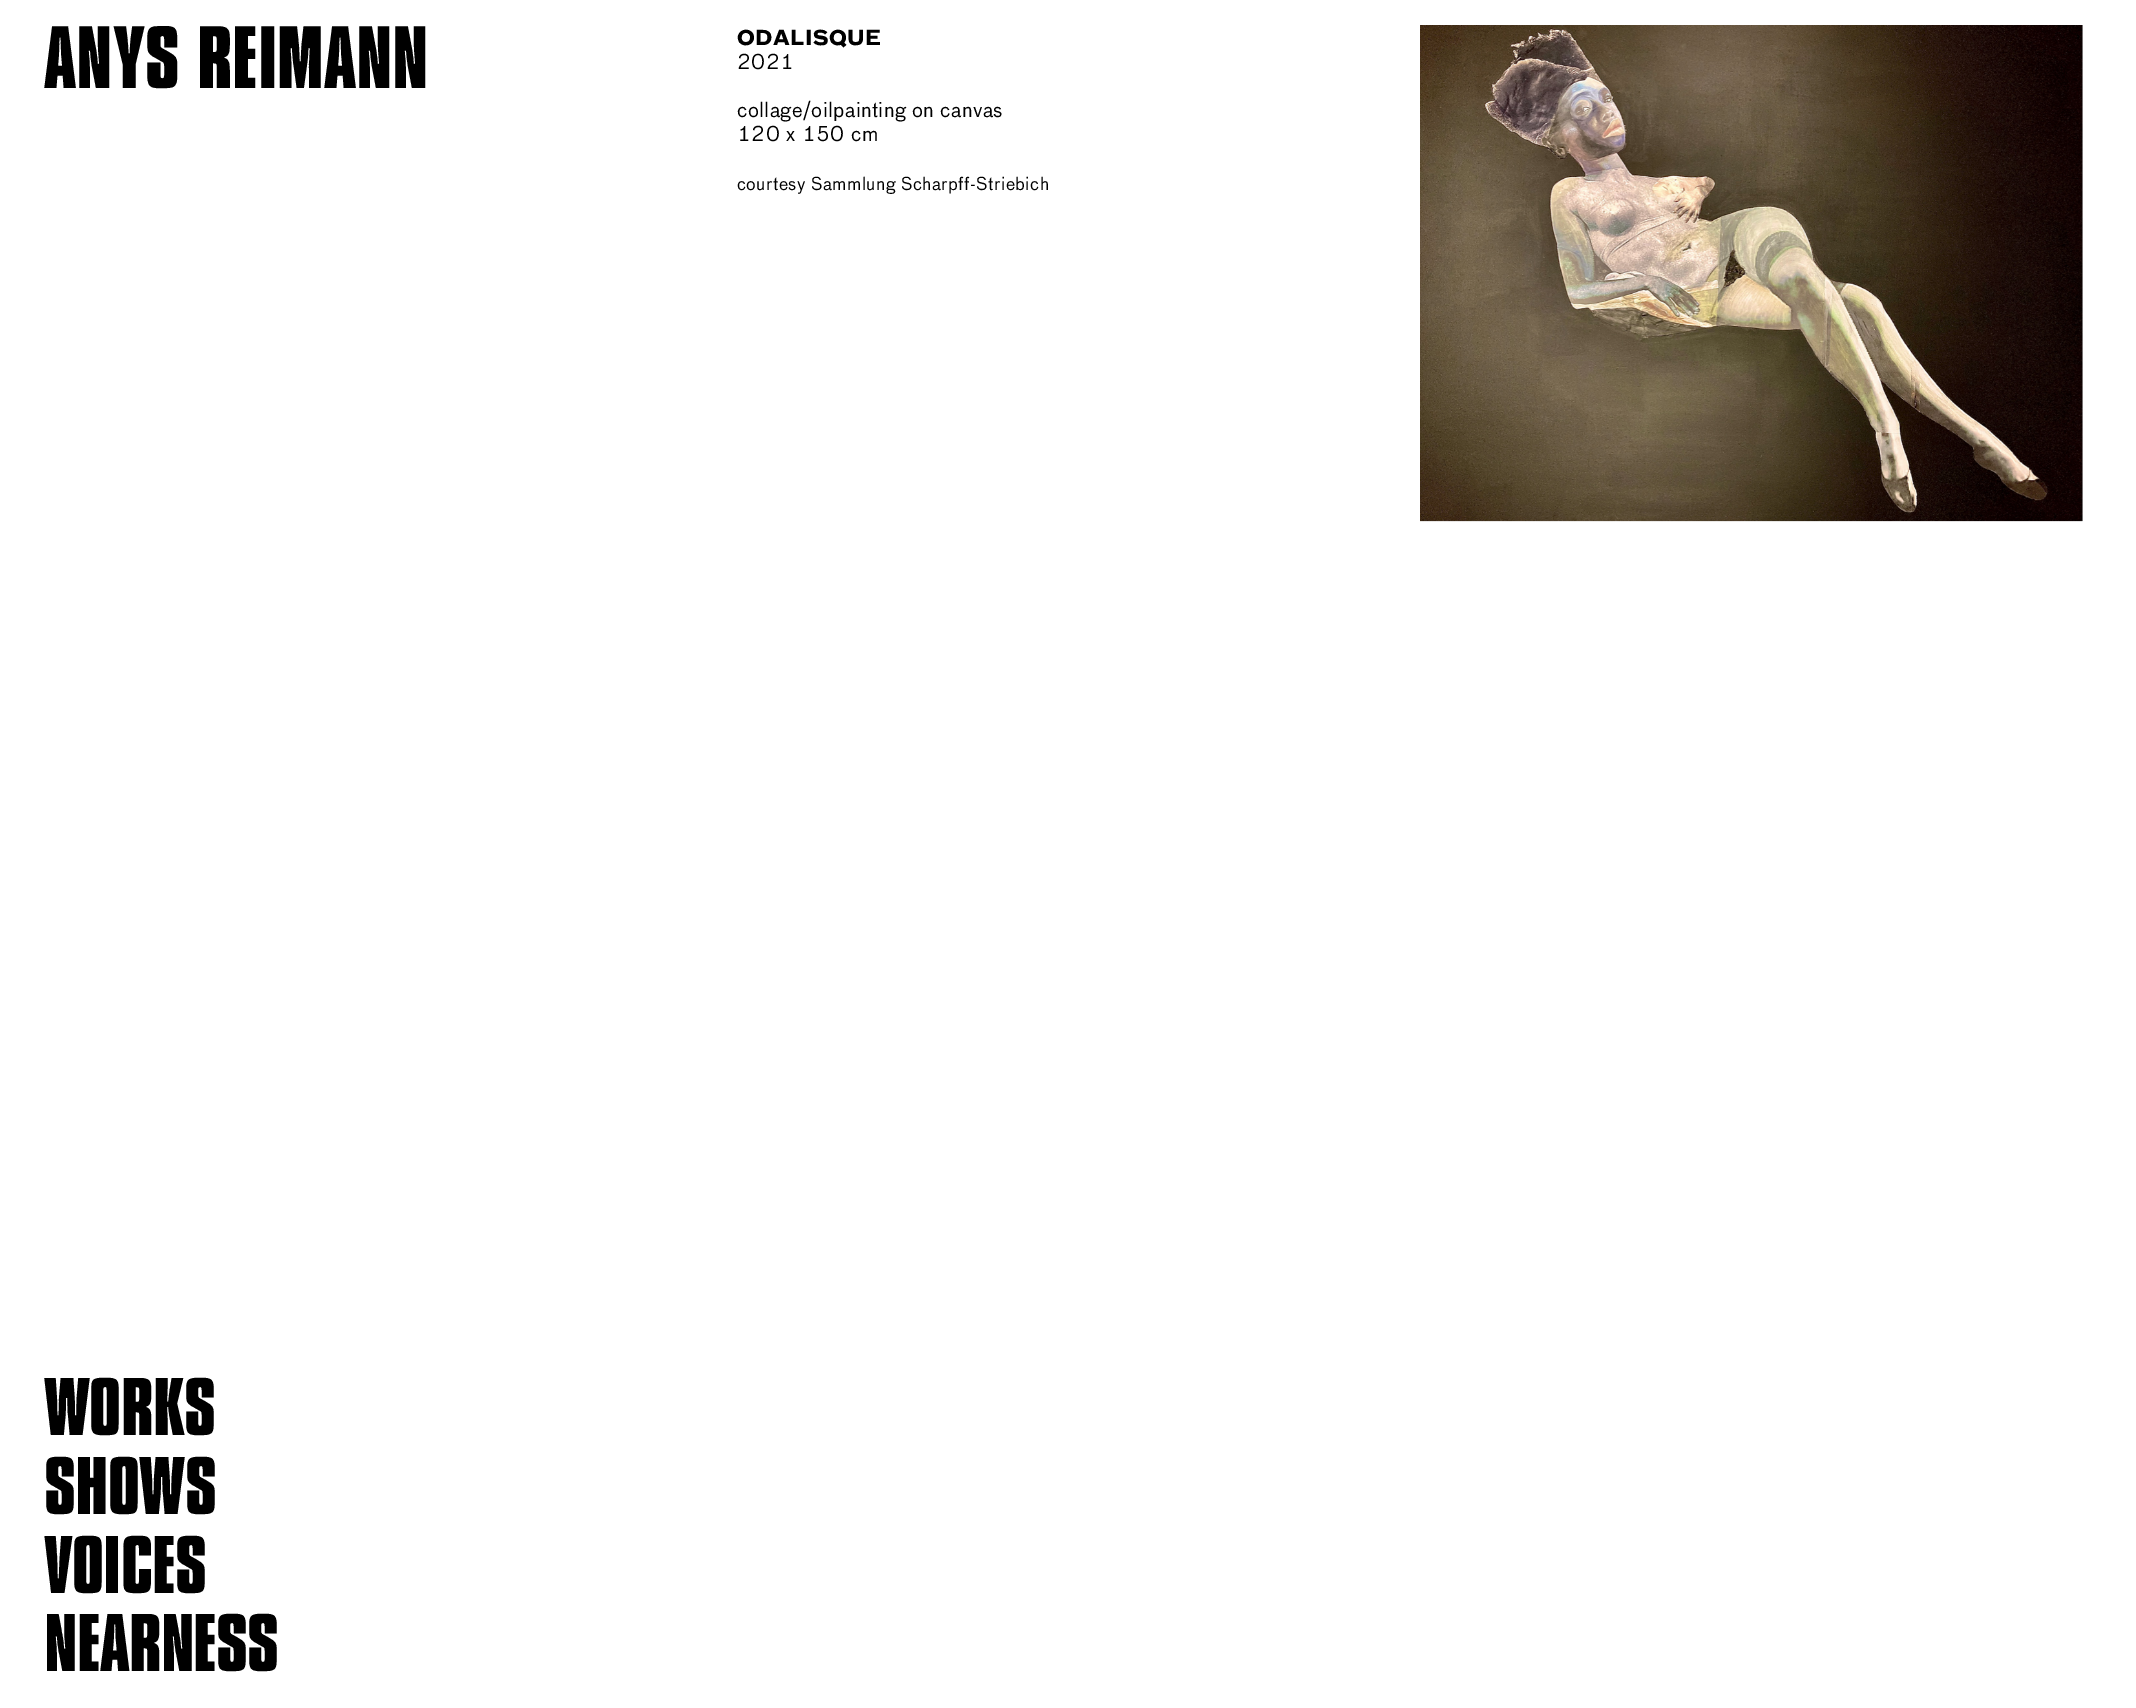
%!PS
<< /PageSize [2136 1708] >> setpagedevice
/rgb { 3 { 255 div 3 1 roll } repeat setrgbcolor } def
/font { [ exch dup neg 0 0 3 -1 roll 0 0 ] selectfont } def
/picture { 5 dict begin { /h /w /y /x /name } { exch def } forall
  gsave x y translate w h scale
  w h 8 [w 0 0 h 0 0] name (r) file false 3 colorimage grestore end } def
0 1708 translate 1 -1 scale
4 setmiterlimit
255 255 255 rgb
0 0 2136 1708 rectfill
214 214 214 rgb
2082 25 1 496 rectfill
(img/1.rgb) 1420 25 663 497 picture
/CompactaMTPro-Bold 81.25 font
0 0 0 rgb
44 88 moveto (ANYS REIMANN) show
/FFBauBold-Bold 20 font
737 45 moveto 0.4 0 (ODALISQUE) ashow
/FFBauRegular-Regular 20 font
737 69 moveto 0.4 0 (2021) ashow
737 117 moveto 0.4 0 (collage/oilpainting on canvas) ashow
737 141 moveto 0.4 0 (120 x 150 cm) ashow
/FFBauRegular-Regular 17.5 font
737 190 moveto 0.4 0 (courtesy Sammlung Scharpff-Striebich) ashow
/CompactaMTPro-Bold 75 font
44 1435 moveto -0.75 0 (WORKS) ashow
44 1514 moveto -0.75 0 (SHOWS) ashow
44 1593 moveto -0.75 0 (VOICES) ashow
44 1671 moveto -0.75 0 (NEARNESS) ashow
showpage
